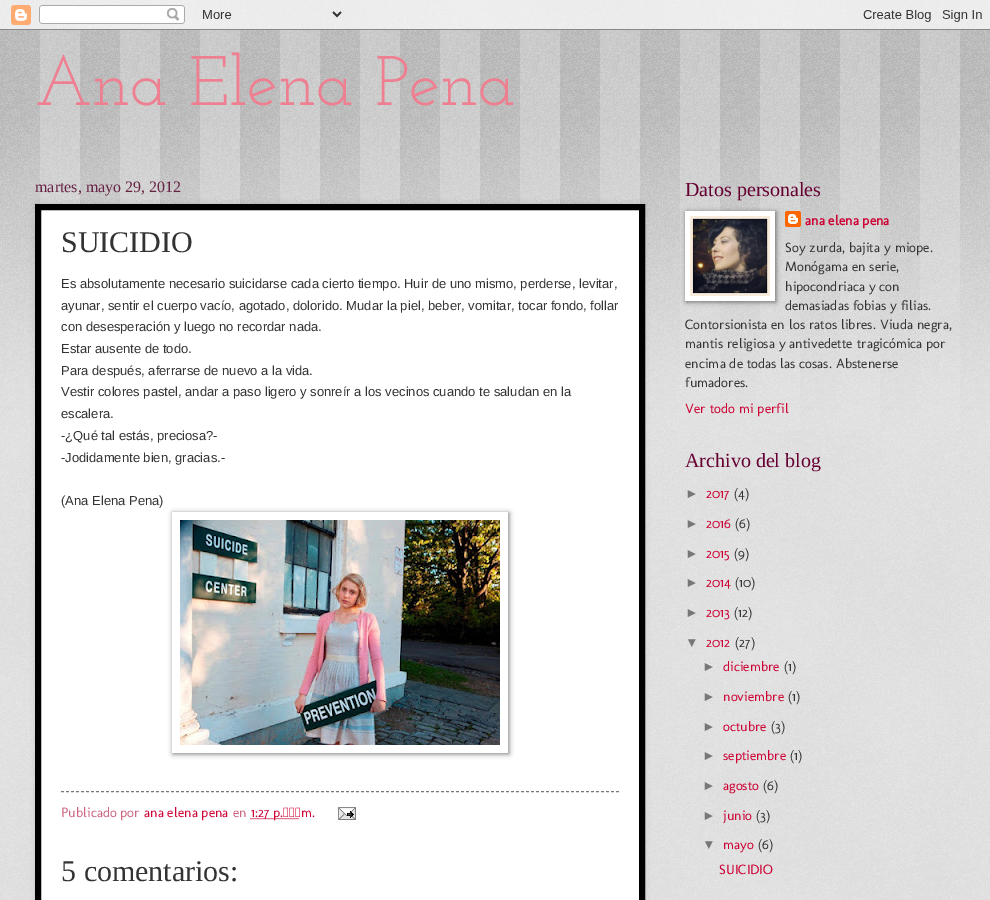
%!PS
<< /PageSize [990 900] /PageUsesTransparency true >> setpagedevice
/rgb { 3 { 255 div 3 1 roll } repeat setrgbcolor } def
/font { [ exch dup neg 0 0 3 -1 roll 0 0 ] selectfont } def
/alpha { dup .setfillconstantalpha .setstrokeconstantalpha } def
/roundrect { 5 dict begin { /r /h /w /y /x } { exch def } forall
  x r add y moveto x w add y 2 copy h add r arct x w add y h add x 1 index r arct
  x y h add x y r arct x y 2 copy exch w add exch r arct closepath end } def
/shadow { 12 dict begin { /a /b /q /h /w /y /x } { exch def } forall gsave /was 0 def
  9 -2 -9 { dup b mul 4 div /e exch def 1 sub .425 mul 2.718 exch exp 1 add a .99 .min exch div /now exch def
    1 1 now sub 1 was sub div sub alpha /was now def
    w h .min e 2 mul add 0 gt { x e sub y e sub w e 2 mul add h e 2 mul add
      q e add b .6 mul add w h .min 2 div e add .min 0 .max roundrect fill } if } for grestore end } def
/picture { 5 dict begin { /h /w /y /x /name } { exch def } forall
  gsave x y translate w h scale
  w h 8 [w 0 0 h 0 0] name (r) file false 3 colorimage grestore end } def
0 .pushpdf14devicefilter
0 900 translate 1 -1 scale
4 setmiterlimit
255 255 255 rgb
0 0 990 900 rectfill
(img/1.rgb) 0 0 990 900 picture
(img/2.rgb) 0 0 990 30 picture
127 127 127 rgb
0 30 990 400 rectfill
(img/3.rgb) 0 30 990 400 picture
0 0 0 rgb
35 204 610 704 0 2.5 0.1 shadow
255 255 255 rgb
38 207 moveto 642 207 lineto 642 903 lineto 38 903 lineto closepath gsave fill grestore
0 0 0 rgb
6 setlinewidth
stroke
gsave
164 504 moveto 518 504 lineto 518 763 lineto 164 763 lineto closepath 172 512 moveto 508 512 lineto 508 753 lineto 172 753 lineto closepath eoclip newpath
173 513 336 241 0 2.5 0.5 shadow
grestore
(img/4.rgb) 180 520 320 225 picture
119 119 119 rgb
1 setlinewidth
[3 2] 0 setdash
61 791.5 moveto 619 791.5 lineto stroke
204 0 51 rgb
[1 1] 0 setdash
250.5 818.5 moveto 299 818.5 lineto stroke
(img/5.rgb) 338 807 18 13 picture
0 0 0 rgb
686 212 90 90 0 2.5 0.5 shadow
255 255 255 rgb
685 211 90 90 rectfill
(img/6.rgb) 690 216 80 80 picture
(img/7.rgb) 785 211 16 16 picture
/JosefinSlab-Thin 70 font
238 127 144 rgb
35 105 moveto (Ana Elena Pena) show
/LiberationSerif-Regular 16 font
102 34 68 rgb
35 192 moveto (martes, mayo 29, 2012) show
/LiberationSerif-Regular 30 font
51 51 51 rgb
61 252 moveto (SUICIDIO) show
/LiberationSans-Regular 13 font
[
  [(Es absolutamente necesario suicidarse cada cierto tiempo. Huir de uno mismo, perderse, levitar,) 61 288]
  [(ayunar, sentir el cuerpo vacío, agotado, dolorido. Mudar la piel, beber, vomitar, tocar fondo, follar) 61 310]
  [(con desesperación y luego no recordar nada.) 61 331]
  [(Estar ausente de todo.) 61 353]
  [(Para después, aferrarse de nuevo a la vida.) 61 375]
] { aload pop moveto show } forall
255 255 255 rgb
318 330 1 4 rectfill
51 51 51 rgb
[
  [(Vestir colores pastel, andar a paso ligero y sonreír a los vecinos cuando te saludan en la) 61 396]
  [(escalera.) 61 418]
  [(-¿Qué tal estás, preciosa?-) 61 440]
  [(-Jodidamente bien, gracias.-) 61 462]
  [(\(Ana Elena Pena\)) 61 505]
] { aload pop moveto show } forall
/Molengo-Regular 13.75 font
204 102 127 rgb
61 817 moveto (Publicado por) show
204 0 51 rgb
144 817 moveto (ana elena pena) show
204 102 127 rgb
233 817 moveto (en) show
204 0 51 rgb
251 817 moveto (1:27 p. m.) show
/LiberationSerif-Regular 30 font
51 51 51 rgb
61 881 moveto (5 comentarios:) show
/LiberationSerif-Regular 20 font
102 0 51 rgb
685 196 moveto (Datos personales) show
/Molengo-Bold 13.75 font
204 0 51 rgb
805 225 moveto (ana elena pena) show
/Molengo-Regular 13.75 font
51 51 51 rgb
[
  [(Soy zurda, bajita y miope.) 785 252]
  [(Monógama en serie,) 785 271]
  [(hipocondriaca y con) 785 291]
  [(demasiadas fobias y filias.) 785 310]
  [(Contorsionista en los ratos libres. Viuda negra,) 685 329]
  [(mantis religiosa y antivedette tragicómica por) 685 348]
  [(encima de todas las cosas. Abstenerse) 685 368]
  [(fumadores.) 685 387]
] { aload pop moveto show } forall
204 0 51 rgb
685 413 moveto (Ver todo mi perfil) show
/LiberationSerif-Regular 20 font
102 0 51 rgb
685 467 moveto (Archivo del blog) show
/LiberationSans-Regular 13.75 font
119 119 119 rgb
685 498 moveto (►) show
/Molengo-Regular 13.75 font
204 0 51 rgb
706 498 moveto (2017) show
51 51 51 rgb
734 498 moveto (\(4\)) show
/LiberationSans-Regular 13.75 font
119 119 119 rgb
685 528 moveto (►) show
/Molengo-Regular 13.75 font
204 0 51 rgb
706 528 moveto (2016) show
51 51 51 rgb
735 528 moveto (\(6\)) show
/LiberationSans-Regular 13.75 font
119 119 119 rgb
685 558 moveto (►) show
/Molengo-Regular 13.75 font
204 0 51 rgb
706 558 moveto (2015) show
51 51 51 rgb
734 558 moveto (\(9\)) show
/LiberationSans-Regular 13.75 font
119 119 119 rgb
685 587 moveto (►) show
/Molengo-Regular 13.75 font
204 0 51 rgb
706 587 moveto (2014) show
51 51 51 rgb
735 587 moveto (\(10\)) show
/LiberationSans-Regular 13.75 font
119 119 119 rgb
685 617 moveto (►) show
/Molengo-Regular 13.75 font
204 0 51 rgb
706 617 moveto (2013) show
51 51 51 rgb
734 617 moveto (\(12\)) show
/LiberationSans-Regular 13.75 font
119 119 119 rgb
685 647 moveto (▼) show
/Molengo-Regular 13.75 font
204 0 51 rgb
706 647 moveto (2012) show
51 51 51 rgb
735 647 moveto (\(27\)) show
/LiberationSans-Regular 13.75 font
119 119 119 rgb
702 671 moveto (►) show
/Molengo-Regular 13.75 font
204 0 51 rgb
723 671 moveto (diciembre) show
51 51 51 rgb
784 671 moveto (\(1\)) show
/LiberationSans-Regular 13.75 font
119 119 119 rgb
702 701 moveto (►) show
/Molengo-Regular 13.75 font
204 0 51 rgb
723 701 moveto (noviembre) show
51 51 51 rgb
788 701 moveto (\(1\)) show
/LiberationSans-Regular 13.75 font
119 119 119 rgb
702 731 moveto (►) show
/Molengo-Regular 13.75 font
204 0 51 rgb
723 731 moveto (octubre) show
51 51 51 rgb
771 731 moveto (\(3\)) show
/LiberationSans-Regular 13.75 font
119 119 119 rgb
702 760 moveto (►) show
/Molengo-Regular 13.75 font
204 0 51 rgb
723 760 moveto (septiembre) show
51 51 51 rgb
790 760 moveto (\(1\)) show
/LiberationSans-Regular 13.75 font
119 119 119 rgb
702 790 moveto (►) show
/Molengo-Regular 13.75 font
204 0 51 rgb
723 790 moveto (agosto) show
51 51 51 rgb
763 790 moveto (\(6\)) show
/LiberationSans-Regular 13.75 font
119 119 119 rgb
702 820 moveto (►) show
/Molengo-Regular 13.75 font
204 0 51 rgb
723 820 moveto (junio) show
51 51 51 rgb
756 820 moveto (\(3\)) show
/LiberationSans-Regular 13.75 font
119 119 119 rgb
702 849 moveto (▼) show
/Molengo-Regular 13.75 font
204 0 51 rgb
723 849 moveto (mayo) show
51 51 51 rgb
758 849 moveto (\(6\)) show
204 0 51 rgb
719 874 moveto (SUICIDIO) show
.poppdf14devicefilter showpage
